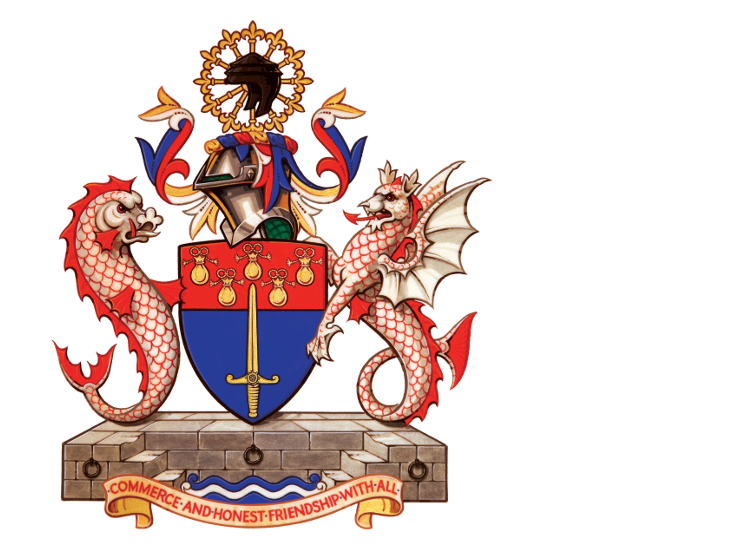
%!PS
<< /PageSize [733 544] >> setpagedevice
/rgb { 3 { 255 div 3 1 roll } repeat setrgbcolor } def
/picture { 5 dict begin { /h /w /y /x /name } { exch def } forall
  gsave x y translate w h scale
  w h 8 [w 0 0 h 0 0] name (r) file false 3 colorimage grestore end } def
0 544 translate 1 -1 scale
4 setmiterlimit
255 255 255 rgb
0 0 733 544 rectfill
(img/1.rgb) 51 20 442 510 picture
showpage
